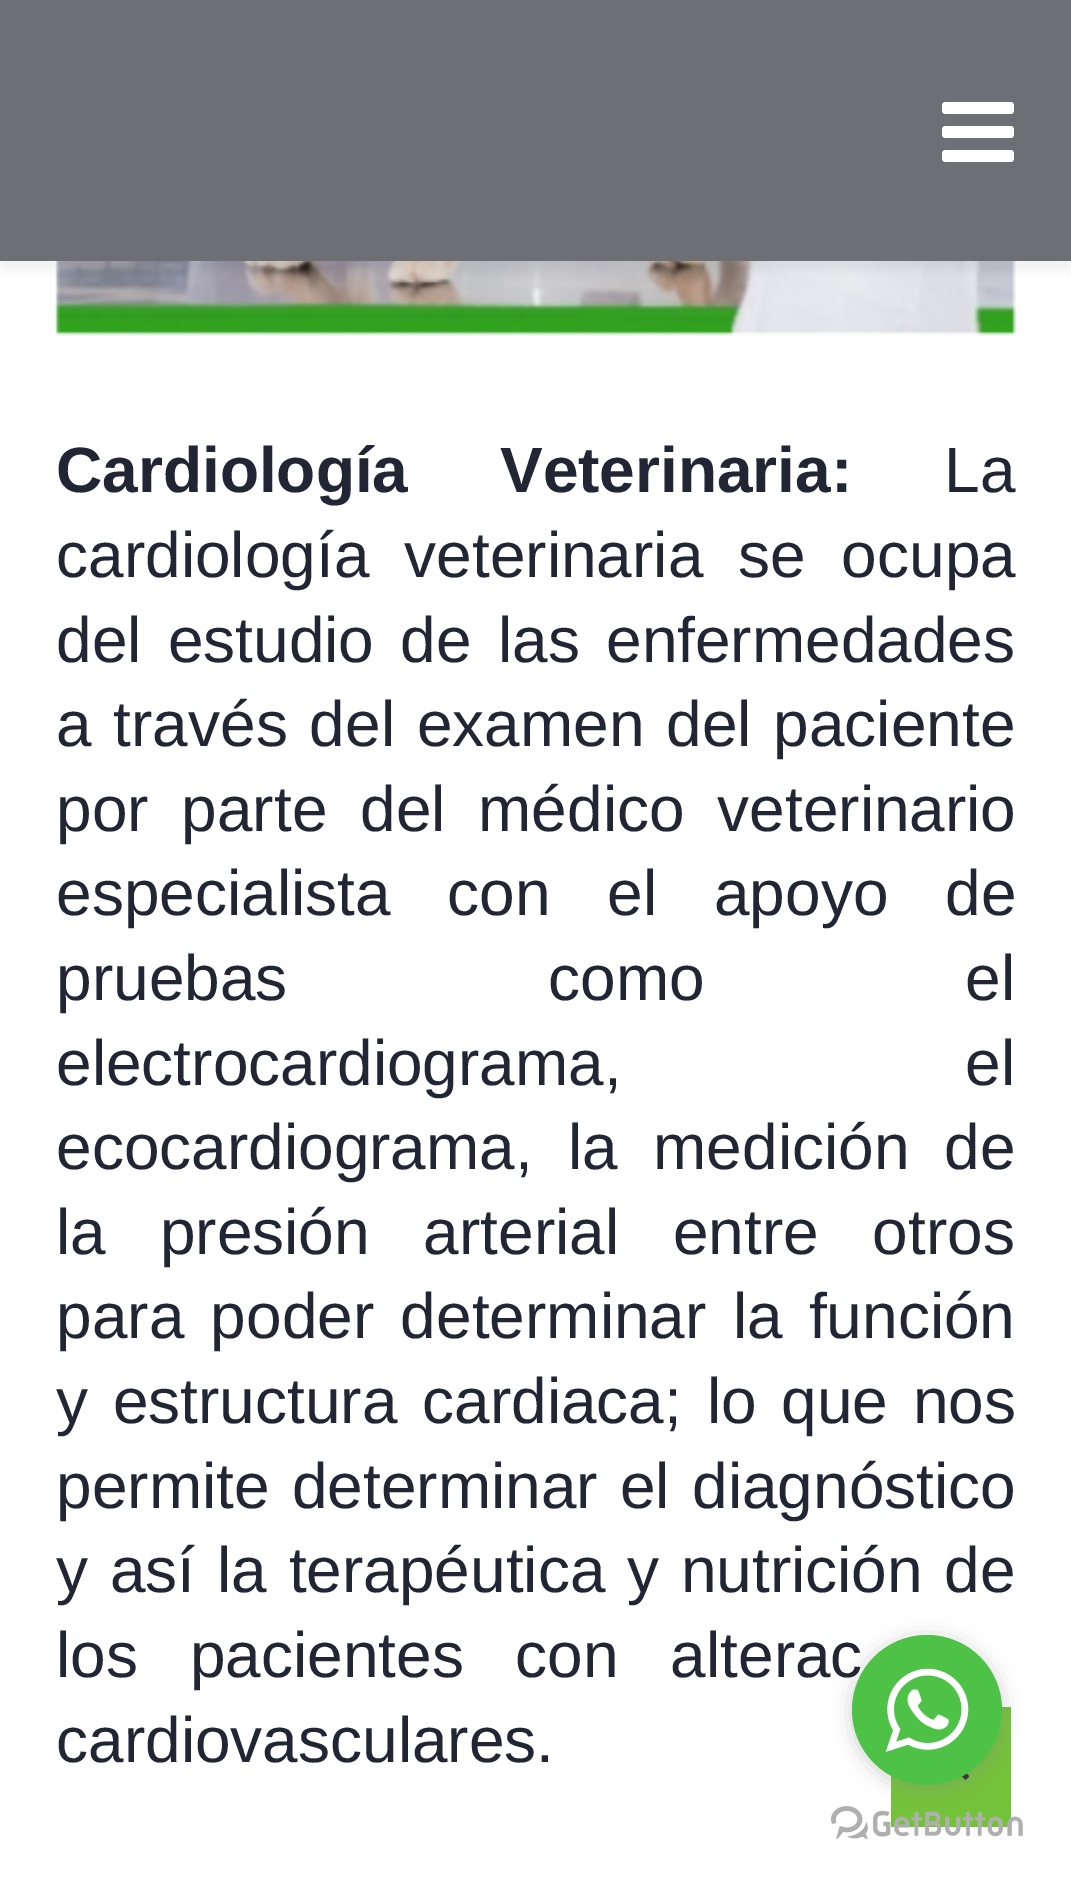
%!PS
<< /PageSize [1071 1886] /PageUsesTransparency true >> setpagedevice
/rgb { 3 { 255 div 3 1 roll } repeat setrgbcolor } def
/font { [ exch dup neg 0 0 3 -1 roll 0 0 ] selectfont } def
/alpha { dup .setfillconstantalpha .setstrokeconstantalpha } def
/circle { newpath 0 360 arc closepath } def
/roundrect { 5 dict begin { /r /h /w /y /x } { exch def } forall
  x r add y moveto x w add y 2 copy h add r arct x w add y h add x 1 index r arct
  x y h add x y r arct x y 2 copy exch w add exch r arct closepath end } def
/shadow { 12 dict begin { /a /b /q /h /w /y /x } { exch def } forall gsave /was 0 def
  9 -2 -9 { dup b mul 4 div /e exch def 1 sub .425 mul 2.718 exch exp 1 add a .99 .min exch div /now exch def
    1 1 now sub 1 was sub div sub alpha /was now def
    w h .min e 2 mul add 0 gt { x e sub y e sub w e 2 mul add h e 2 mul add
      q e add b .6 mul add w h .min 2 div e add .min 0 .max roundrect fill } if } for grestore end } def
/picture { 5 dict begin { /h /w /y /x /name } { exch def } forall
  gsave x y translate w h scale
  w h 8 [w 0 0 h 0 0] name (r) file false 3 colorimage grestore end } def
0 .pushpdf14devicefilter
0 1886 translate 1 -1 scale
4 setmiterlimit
255 255 255 rgb
0 0 1071 1886 rectfill
(img/2.rgb) 55 261 962 75 picture
0 0 0 rgb
0 9 1071 261 0 4.5 0.05 shadow
110 111 117 rgb
0 0 1071 261 rectfill
(img/1.rgb) 942 102 72 60 picture
116 194 57 rgb
891 1707 120 120 rectfill
(img/4.rgb) 831 1806 192 33 picture
(img/5.rgb) 961 1773 8 7 picture
136 136 136 rgb
852 1638 150 150 75 10.5 0.4 shadow
/LiberationSans-Bold 64 font
34 37 51 rgb
56 492 moveto 74 0 32 (Cardiología Veterinaria:) widthshow
/LiberationSans-Regular 64 font
944 492 moveto (La) show
56 577 moveto 17.5 0 32 (cardiología veterinaria se ocupa) widthshow
56 662 moveto 8.5 0 32 (del estudio de las enfermedades) widthshow
56 746 moveto 4 0 32 (a través del examen del paciente) widthshow
56 831 moveto 15 0 32 (por parte del médico veterinario) widthshow
56 915 moveto 39 0 32 (especialista con el apoyo de) widthshow
56 1000 moveto 243 0 32 (pruebas como el) widthshow
56 1085 moveto 326 0 32 (electrocardiograma, el) widthshow
56 1169 moveto 17.5 0 32 (ecocardiograma, la medición de) widthshow
56 1254 moveto 36 0 32 (la presión arterial entre otros) widthshow
56 1338 moveto 8.5 0 32 (para poder determinar la función) widthshow
56 1423 moveto 7 0 32 (y estructura cardiaca; lo que nos) widthshow
56 1508 moveto 4.5 0 32 (permite determinar el diagnóstico) widthshow
56 1592 moveto 4 0 32 (y así la terapéutica y nutrición de) widthshow
56 1677 moveto 34 0 32 (los pacientes con alterac) widthshow
56 1762 moveto (cardiovasculares.) show
77 194 71 rgb
927 1710 75 circle fill
(img/3.rgb) 885 1668 84 84 picture
.poppdf14devicefilter showpage
